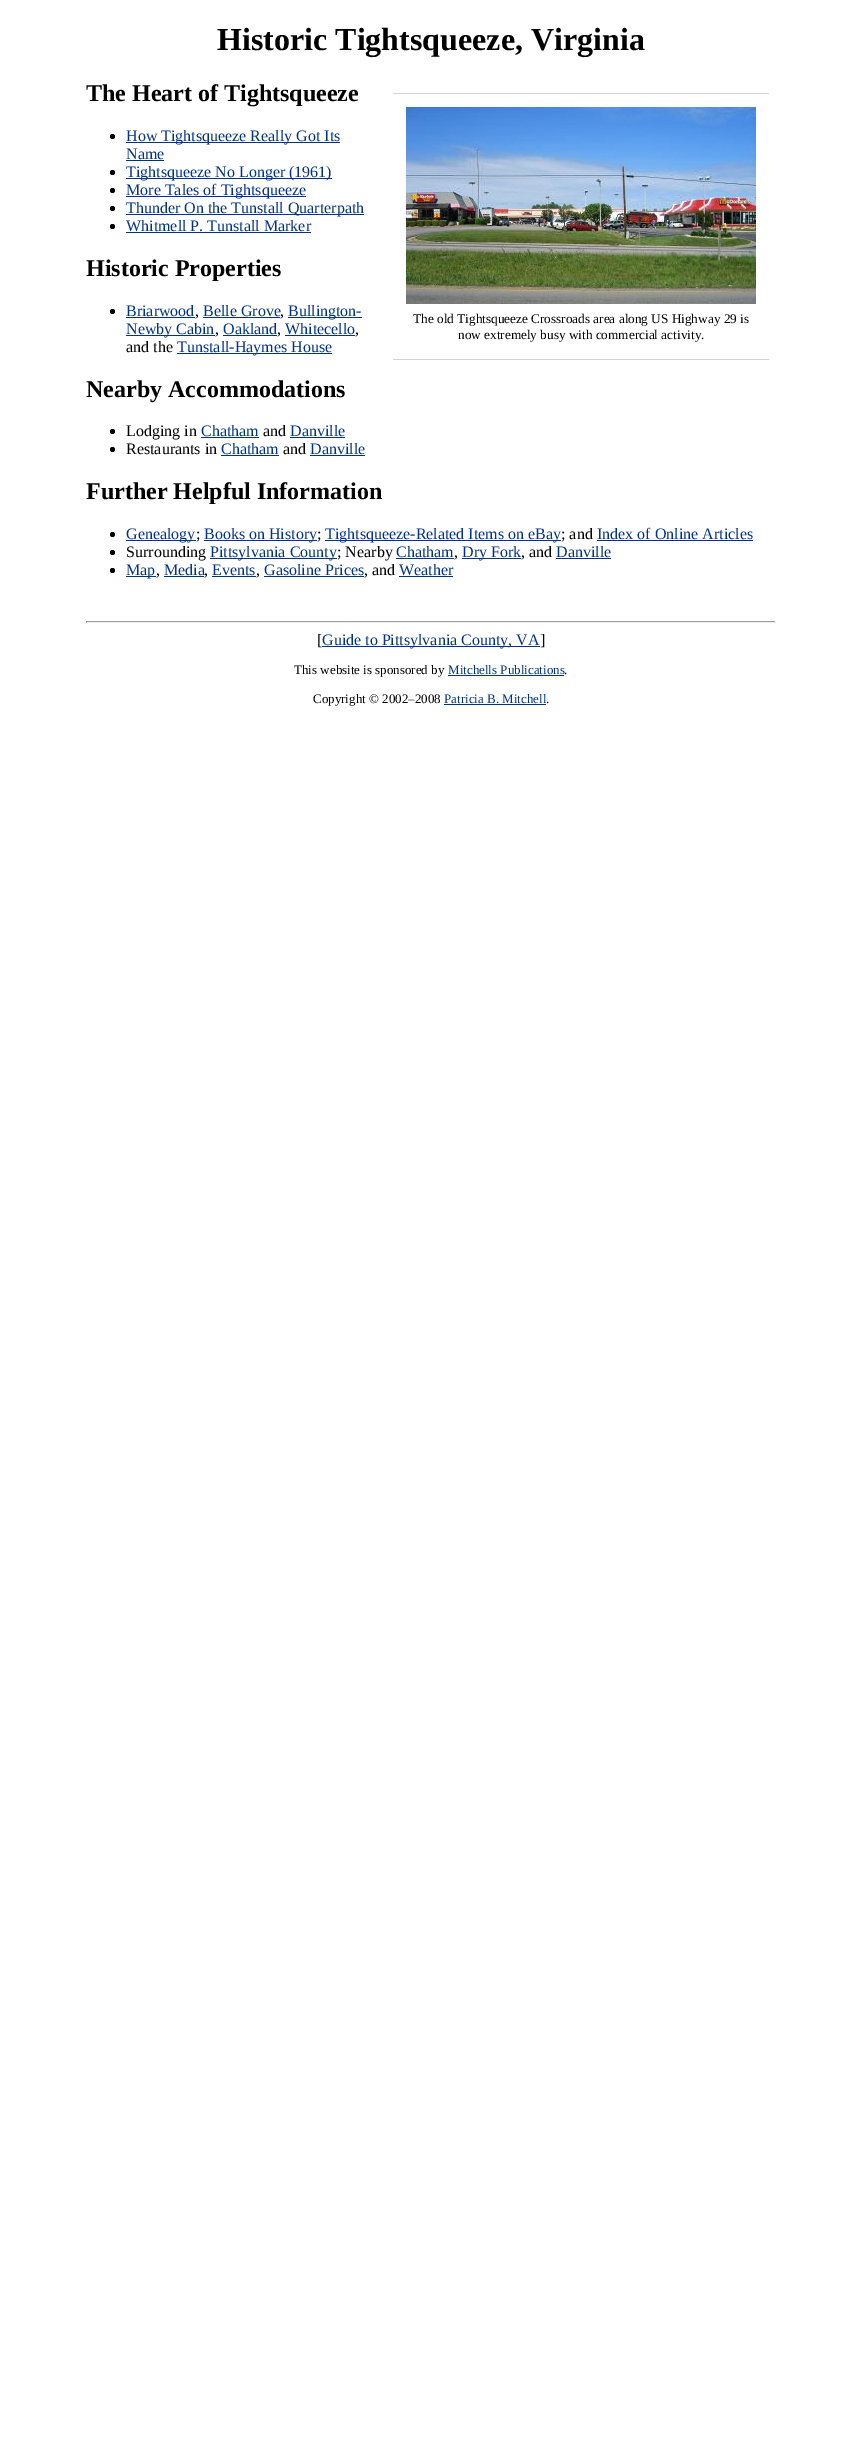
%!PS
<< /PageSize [862 2464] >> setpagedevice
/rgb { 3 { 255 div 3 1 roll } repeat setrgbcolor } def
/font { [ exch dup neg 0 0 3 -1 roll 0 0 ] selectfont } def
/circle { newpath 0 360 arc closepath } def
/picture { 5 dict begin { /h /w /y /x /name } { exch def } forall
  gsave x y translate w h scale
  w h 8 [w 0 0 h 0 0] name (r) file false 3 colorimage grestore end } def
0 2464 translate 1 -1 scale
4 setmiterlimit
255 255 255 rgb
0 0 862 2464 rectfill
0 0 0 rgb
112.5 136.5 2.5 circle fill
0 51 136 rgb
126 142 214 1 rectfill
126 160 38 1 rectfill
0 0 0 rgb
112.5 172.5 2.5 circle fill
0 51 136 rgb
126 178 206 1 rectfill
0 0 0 rgb
112.5 190.5 2.5 circle fill
0 51 136 rgb
126 196 180 1 rectfill
0 0 0 rgb
112.5 208.5 2.5 circle fill
0 51 136 rgb
126 214 238 1 rectfill
0 0 0 rgb
112.5 226.5 2.5 circle fill
0 51 136 rgb
126 232 185 1 rectfill
0 0 0 rgb
112.5 311.5 2.5 circle fill
[
  [126 317 69 1 0 51 136]
  [203 317 77 1 0 51 136]
  [288 317 74 1 0 51 136]
  [126 335 89 1 0 51 136]
  [223 335 54 1 0 51 136]
  [285 335 70 1 0 51 136]
  [177 353 155 1 0 51 136]
  [393 93 376 1 211 211 211]
  [393 359 376 1 211 211 211]
] { aload pop rgb rectfill } forall
(img/1.rgb) 406 107 350 197 picture
0 0 0 rgb
112.5 431.5 2.5 circle fill
0 51 136 rgb
201 437 58 1 rectfill
290 437 55 1 rectfill
0 0 0 rgb
112.5 449.5 2.5 circle fill
0 51 136 rgb
221 455 58 1 rectfill
310 455 55 1 rectfill
0 0 0 rgb
112.5 534.5 2.5 circle fill
[
  [126 540 70 1 0 51 136]
  [204 540 113 1 0 51 136]
  [325 540 236 1 0 51 136]
  [597 540 156 1 0 51 136]
] { aload pop rgb rectfill } forall
0 0 0 rgb
112.5 552.5 2.5 circle fill
[
  [210 558 127 1 0 51 136]
  [396 558 58 1 0 51 136]
  [462 558 59 1 0 51 136]
  [556 558 55 1 0 51 136]
] { aload pop rgb rectfill } forall
0 0 0 rgb
112.5 570.5 2.5 circle fill
[
  [126 576 30 1 0 51 136]
  [164 576 40 1 0 51 136]
  [212 576 44 1 0 51 136]
  [264 576 100 1 0 51 136]
  [399 576 54 1 0 51 136]
  [86 621 690 1 159 159 159]
  [775 621 1 2 238 238 238]
  [86 622 690 1 238 238 238]
  [86 621 1 2 159 159 159]
  [322 646 218 1 0 51 136]
  [448 675 116 1 0 51 136]
  [444 704 102 1 0 51 136]
] { aload pop rgb rectfill } forall
/LiberationSerif-Bold 32 font
0 0 0 rgb
217 50 moveto (Historic Tightsqueeze, Virginia) show
/LiberationSerif-Bold 24 font
86 101 moveto (The Heart of Tightsqueeze) show
/LiberationSerif-Regular 16 font
0 51 136 rgb
[
  [(How Tightsqueeze Really Got Its) 126 141]
  [(Name) 126 159]
  [(Tightsqueeze No Longer \(1961\)) 126 177]
  [(More Tales of Tightsqueeze) 126 195]
  [(Thunder On the Tunstall Quarterpath) 126 213]
  [(Whitmell P. Tunstall Marker) 126 231]
] { aload pop moveto show } forall
/LiberationSerif-Bold 24 font
0 0 0 rgb
86 276 moveto (Historic Properties) show
/LiberationSerif-Regular 16 font
0 51 136 rgb
[
  [(Briarwood) 126 316]
  [(Belle Grove) 203 316]
  [(Bullington-) 288 316]
] { aload pop moveto show } forall
0 0 0 rgb
195 316 moveto (,) show
280 316 moveto (,) show
0 51 136 rgb
126 334 moveto (Newby Cabin) show
0 0 0 rgb
215 334 moveto (,) show
0 51 136 rgb
223 334 moveto (Oakland) show
0 0 0 rgb
277 334 moveto (,) show
0 51 136 rgb
285 334 moveto (Whitecello) show
0 0 0 rgb
355 334 moveto (,) show
126 352 moveto (and the) show
0 51 136 rgb
177 352 moveto (Tunstall-Haymes House) show
/LiberationSerif-Regular 13.25 font
0 0 0 rgb
413 323 moveto (The old Tightsqueeze Crossroads area along US Highway 29 is) show
458 339 moveto (now extremely busy with commercial activity.) show
/LiberationSerif-Bold 24 font
86 397 moveto (Nearby Accommodations) show
/LiberationSerif-Regular 16 font
126 436 moveto (Lodging in) show
0 51 136 rgb
201 436 moveto (Chatham) show
0 0 0 rgb
263 436 moveto (and) show
0 51 136 rgb
290 436 moveto (Danville) show
0 0 0 rgb
126 454 moveto (Restaurants in) show
0 51 136 rgb
221 454 moveto (Chatham) show
0 0 0 rgb
283 454 moveto (and) show
0 51 136 rgb
310 454 moveto (Danville) show
/LiberationSerif-Bold 24 font
0 0 0 rgb
86 499 moveto (Further Helpful Information) show
/LiberationSerif-Regular 16 font
0 51 136 rgb
126 539 moveto (Genealogy) show
0 0 0 rgb
196 539 moveto (;) show
0 51 136 rgb
204 539 moveto (Books on History) show
0 0 0 rgb
317 539 moveto (;) show
0 51 136 rgb
325 539 moveto (Tightsqueeze-Related Items on eBay) show
0 0 0 rgb
561 539 moveto (; and) show
0 51 136 rgb
597 539 moveto (Index of Online Articles) show
0 0 0 rgb
126 557 moveto (Surrounding) show
0 51 136 rgb
210 557 moveto (Pittsylvania County) show
0 0 0 rgb
337 557 moveto (; Nearby) show
0 51 136 rgb
396 557 moveto (Chatham) show
462 557 moveto (Dry Fork) show
0 0 0 rgb
521 557 moveto (, and) show
0 51 136 rgb
556 557 moveto (Danville) show
0 0 0 rgb
454 557 moveto (,) show
0 51 136 rgb
[
  [(Map) 126 575]
  [(Media) 164 575]
  [(Events) 212 575]
  [(Gasoline Prices) 264 575]
] { aload pop moveto show } forall
0 0 0 rgb
364 575 moveto (, and) show
0 51 136 rgb
399 575 moveto (Weather) show
0 0 0 rgb
[
  [(,) 156 575]
  [(,) 204 575]
  [(,) 256 575]
  [([) 317 645]
] { aload pop moveto show } forall
0 51 136 rgb
322 645 moveto (Guide to Pittsylvania County, VA) show
0 0 0 rgb
540 645 moveto (]) show
/LiberationSerif-Regular 13 font
294 674 moveto (This website is sponsored by) show
0 51 136 rgb
448 674 moveto (Mitchells Publications) show
0 0 0 rgb
564 674 moveto (.) show
313 703 moveto (Copyright © 2002–2008) show
0 51 136 rgb
444 703 moveto (Patricia B. Mitchell) show
0 0 0 rgb
546 703 moveto (.) show
showpage
